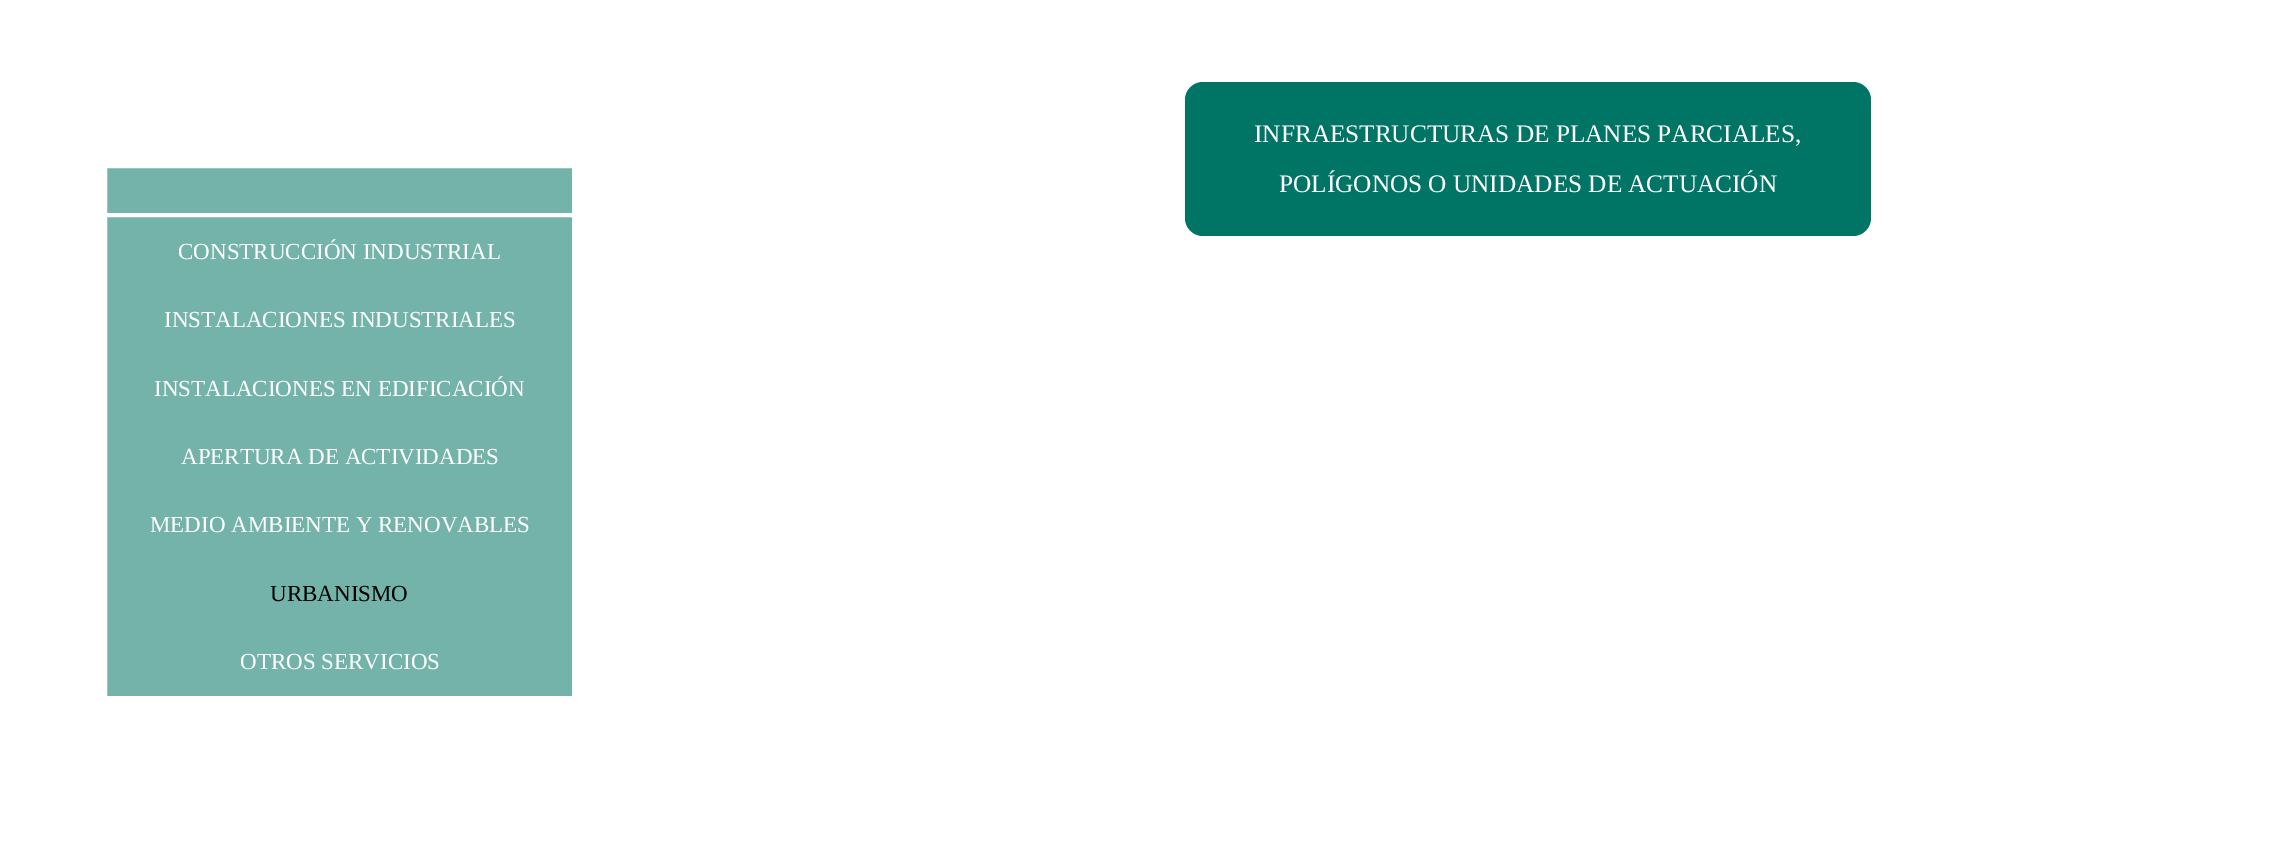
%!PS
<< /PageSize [2293 864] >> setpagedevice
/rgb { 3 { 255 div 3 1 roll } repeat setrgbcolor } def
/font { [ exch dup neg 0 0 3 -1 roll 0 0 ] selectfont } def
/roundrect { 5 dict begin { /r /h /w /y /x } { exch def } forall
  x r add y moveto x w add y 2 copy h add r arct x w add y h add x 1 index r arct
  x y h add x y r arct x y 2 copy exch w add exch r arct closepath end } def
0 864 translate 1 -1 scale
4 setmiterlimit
255 255 255 rgb
0 0 2293 864 rectfill
0 117 101 rgb
1185 82 686 154 18 roundrect fill
115 179 170 rgb
107 168 465 528 rectfill
255 255 255 rgb
2 setlinewidth
106 167 467 47 rectstroke
106 216 467 481 rectstroke
/LiberationSerif-Regular 25.25 font
1254 142 moveto (INFRAESTRUCTURAS DE PLANES PARCIALES,) show
1279 192 moveto (POLÍGONOS O UNIDADES DE ACTUACIÓN) show
/LiberationSerif-Regular 23 font
[
  [(CONSTRUCCIÓN INDUSTRIAL) 178 259]
  [(INSTALACIONES INDUSTRIALES) 164 327]
  [(INSTALACIONES EN EDIFICACIÓN) 154 396]
  [(APERTURA DE ACTIVIDADES) 181 464]
  [(MEDIO AMBIENTE Y RENOVABLES) 150 532]
] { aload pop moveto show } forall
0 0 0 rgb
270 601 moveto (URBANISMO) show
255 255 255 rgb
240 669 moveto (OTROS SERVICIOS) show
showpage
